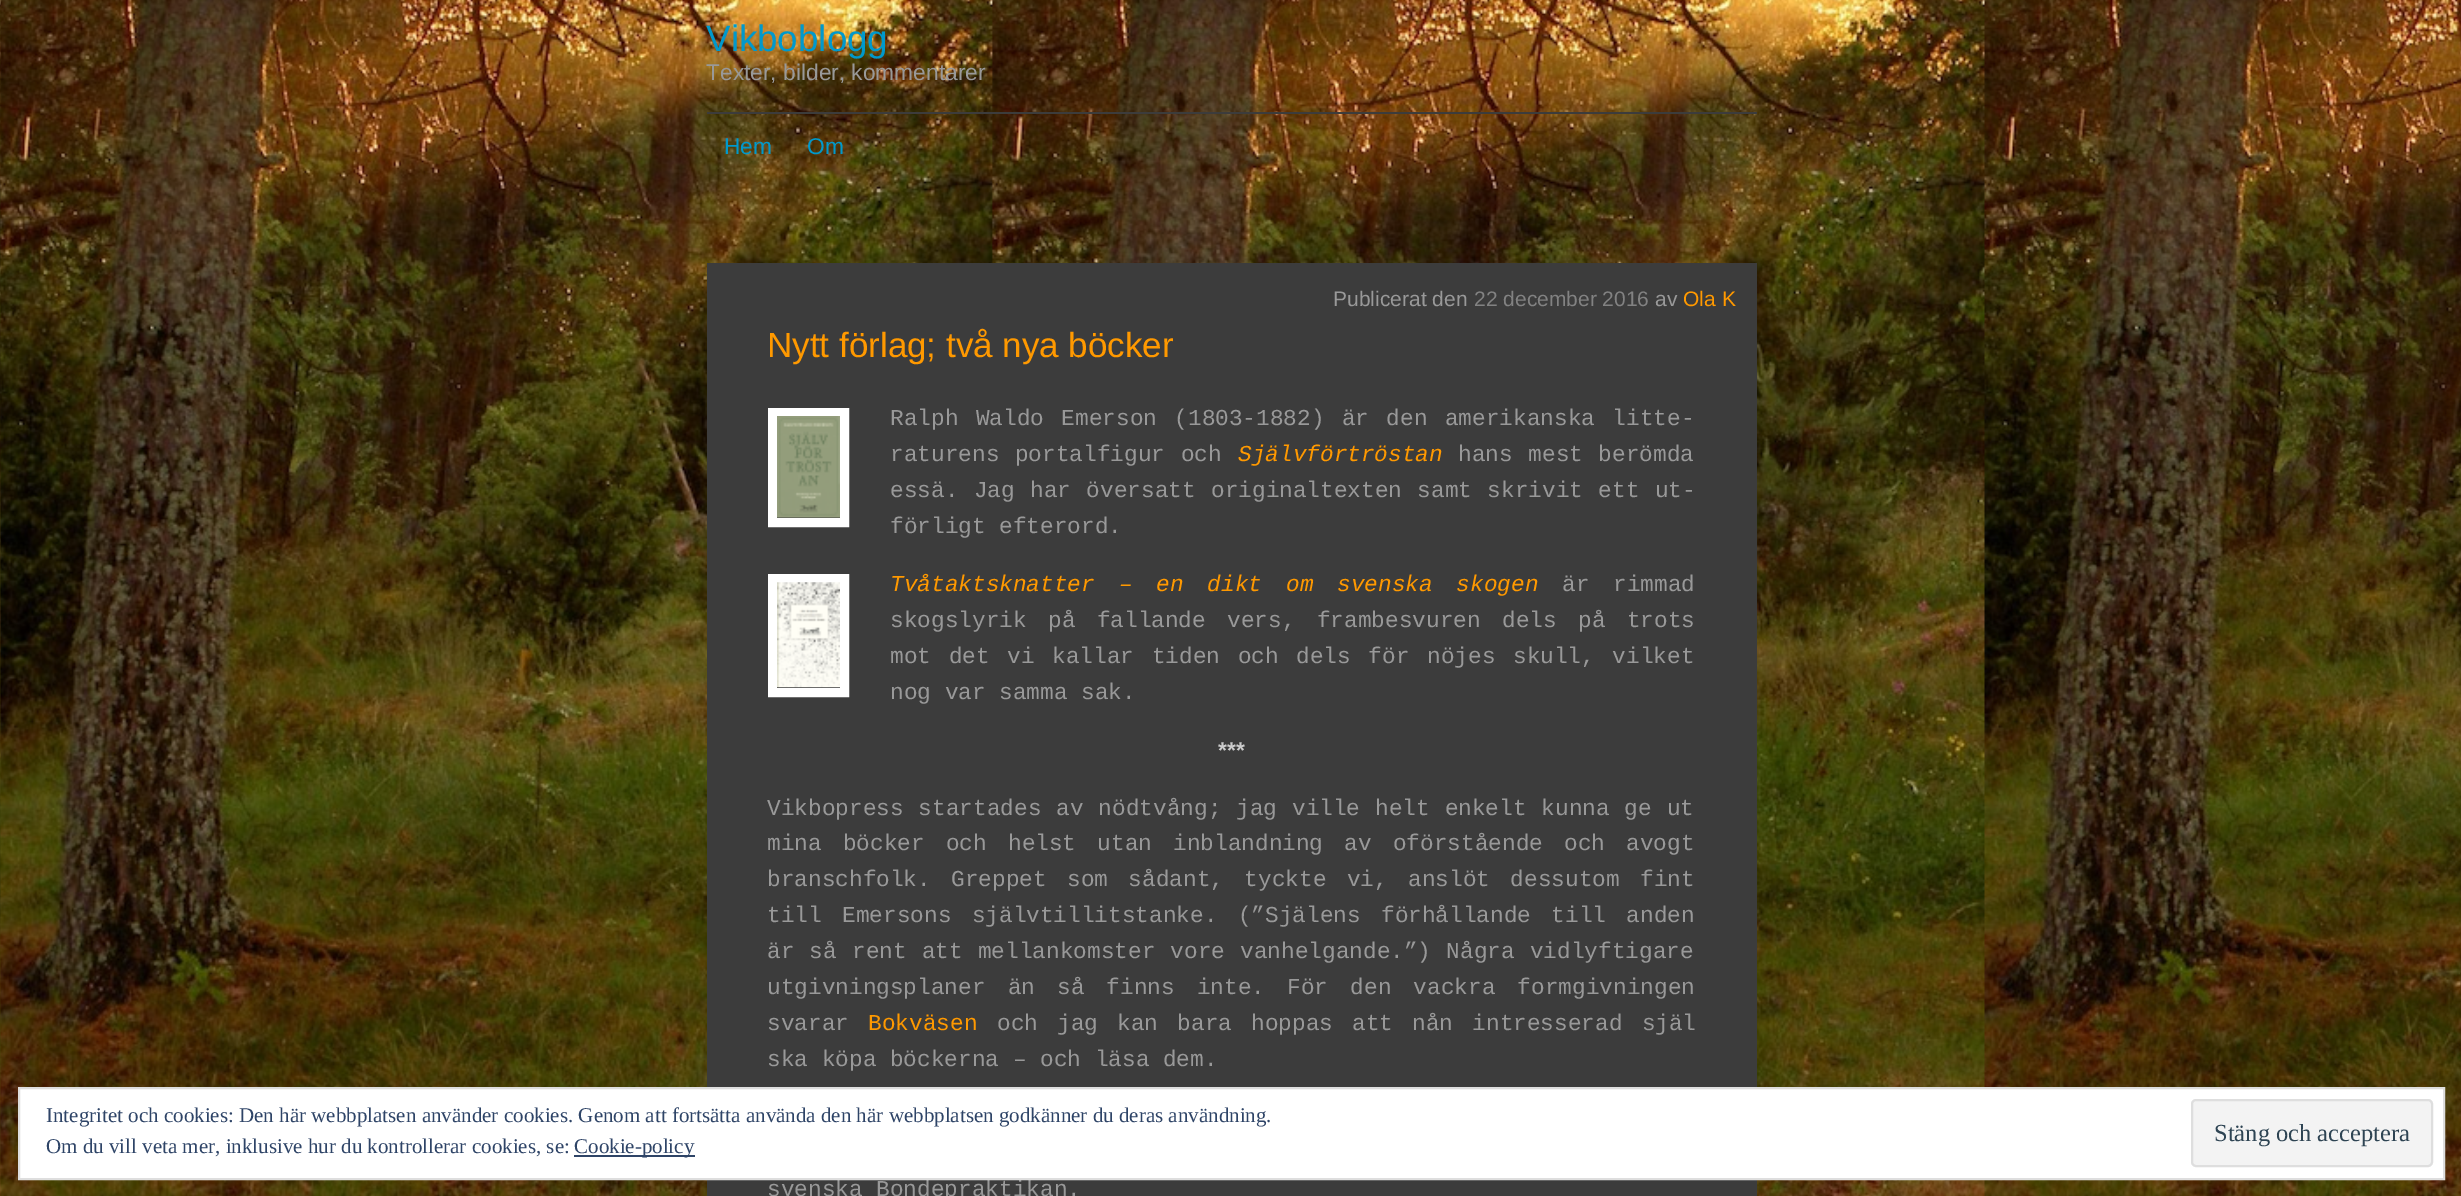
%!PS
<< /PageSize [2461 1196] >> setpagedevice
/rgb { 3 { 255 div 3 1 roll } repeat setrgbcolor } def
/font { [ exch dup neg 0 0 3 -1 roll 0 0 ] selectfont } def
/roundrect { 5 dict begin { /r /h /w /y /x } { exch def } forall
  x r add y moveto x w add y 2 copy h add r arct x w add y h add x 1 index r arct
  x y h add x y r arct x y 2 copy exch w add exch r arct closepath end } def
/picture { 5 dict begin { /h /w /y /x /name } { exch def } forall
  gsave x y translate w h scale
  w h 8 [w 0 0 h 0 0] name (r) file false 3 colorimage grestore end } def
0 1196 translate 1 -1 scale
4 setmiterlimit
255 255 255 rgb
0 0 2461 1196 rectfill
(img/1.rgb) 0 0 2461 1196 picture
60 60 60 rgb
707 112 1050 2 rectfill
707 263 1050 933 rectfill
255 255 255 rgb
9 setlinewidth
772.5 412.5 72 110 rectstroke
(img/2.rgb) 777 416 63 102 picture
772.5 578.5 72 114 rectstroke
(img/3.rgb) 777 582 63 106 picture
/LiberationSans-Regular 36.75 font
0 153 204 rgb
706 51 moveto (Vikboblogg) show
/LiberationSans-Regular 22.75 font
153 153 153 rgb
706 80 moveto (Texter, bilder, kommentarer) show
0 153 204 rgb
724 154 moveto (Hem) show
807 154 moveto (Om) show
/LiberationSans-Regular 21 font
153 153 153 rgb
1333 306 moveto (Publicerat den) show
130 130 130 rgb
1474 306 moveto (22 december 2016) show
153 153 153 rgb
1655 306 moveto (av) show
255 153 0 rgb
1683 306 moveto (Ola K) show
/LiberationSans-Regular 35 font
767 357 moveto (Nytt förlag; två nya böcker) show
/LiberationMono-Regular 22.75 font
153 153 153 rgb
890 425 moveto 3.75 0 32 (Ralph Waldo Emerson \(1803-1882\) är den amerikanska litte-) widthshow
890 461 moveto 2 0 32 (raturens portalfigur och) widthshow
/LiberationMono-Italic 22.75 font
255 153 0 rgb
1238 461 moveto (Självförtröstan) show
/LiberationMono-Regular 22.75 font
153 153 153 rgb
1458 461 moveto 2 0 32 (hans mest berömda) widthshow
890 497 moveto 1.75 0 32 (essä. Jag har översatt originaltexten samt skrivit ett ut-) widthshow
890 533 moveto (förligt efterord.) show
/LiberationMono-Italic 22.75 font
255 153 0 rgb
890 591 moveto 10.25 0 32 (Tvåtaktsknatter – en dikt om svenska skogen) widthshow
/LiberationMono-Regular 22.75 font
153 153 153 rgb
1562 591 moveto 10.25 0 32 (är rimmad) widthshow
890 627 moveto 7.75 0 32 (skogslyrik på fallande vers, frambesvuren dels på trots) widthshow
890 663 moveto 4 0 32 (mot det vi kallar tiden och dels för nöjes skull, vilket) widthshow
890 699 moveto (nog var samma sak.) show
/LiberationSans-Bold 22.75 font
204 204 204 rgb
1218 758 moveto (***) show
/LiberationMono-Regular 22.75 font
153 153 153 rgb
767 815 moveto 1.25 0 32 (Vikbopress startades av nödtvång; jag ville helt enkelt kunna ge ut) widthshow
767 850 moveto 7.5 0 32 (mina böcker och helst utan inblandning av oförstående och avogt) widthshow
767 886 moveto 6.75 0 32 (branschfolk. Greppet som sådant, tyckte vi, anslöt dessutom fint) widthshow
767 922 moveto 6.75 0 32 (till Emersons självtillitstanke. \(”Själens förhållande till anden) widthshow
767 958 moveto 1.5 0 32 (är så rent att mellankomster vore vanhelgande.”\) Några vidlyftigare) widthshow
767 994 moveto 8.5 0 32 (utgivningsplaner än så finns inte. För den vackra formgivningen) widthshow
767 1030 moveto (svarar) show
255 153 0 rgb
868 1030 moveto (Bokväsen) show
153 153 153 rgb
997 1030 moveto 5.5 0 32 (och jag kan bara hoppas att nån intresserad själ) widthshow
767 1066 moveto (ska köpa böckerna – och läsa dem.) show
767 1196 moveto (svenska Bondepraktikan.) show
255 255 255 rgb
19 1088 moveto 2444 1088 lineto 2444 1179 lineto 19 1179 lineto closepath gsave fill grestore
222 222 222 rgb
2 setlinewidth
stroke
/LiberationSerif-Regular 21 font
46 68 103 rgb
46 1122 moveto (Integritet och cookies: Den här webbplatsen använder cookies. Genom att fortsätta använda den här webbplatsen godkänner du deras användning.) show
46 1153 moveto (Om du vill veta mer, inklusive hur du kontrollerar cookies, se:) show
574 1155 121 2 rectfill
574 1153 moveto (Cookie-policy) show
243 243 243 rgb
2192 1100 240 66 4 roundrect gsave fill grestore
222 222 222 rgb
stroke
/LiberationSerif-Regular 24.5 font
46 68 83 rgb
2214 1141 moveto (Stäng och acceptera) show
showpage
